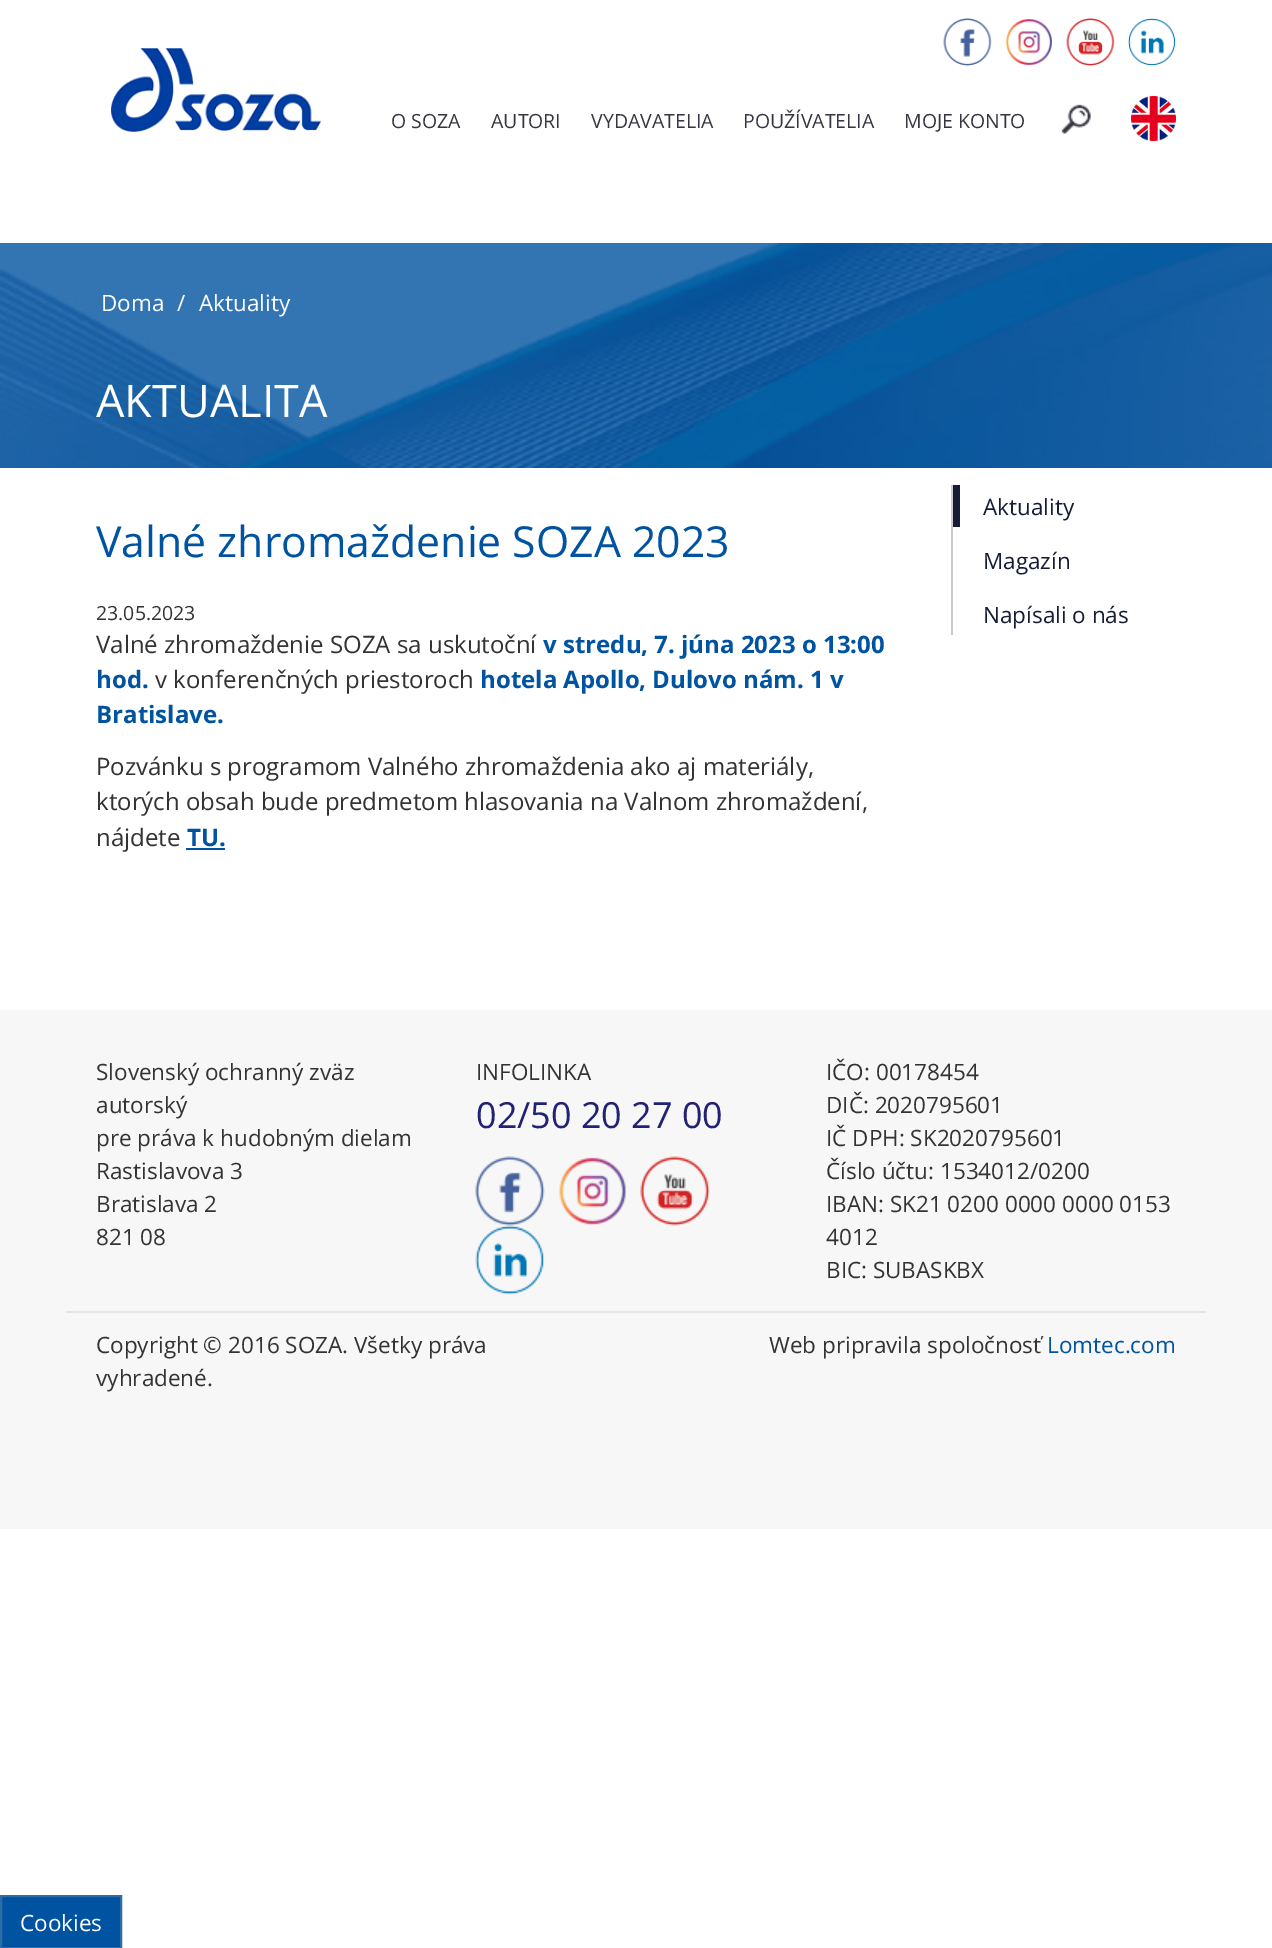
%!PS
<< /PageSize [1272 1948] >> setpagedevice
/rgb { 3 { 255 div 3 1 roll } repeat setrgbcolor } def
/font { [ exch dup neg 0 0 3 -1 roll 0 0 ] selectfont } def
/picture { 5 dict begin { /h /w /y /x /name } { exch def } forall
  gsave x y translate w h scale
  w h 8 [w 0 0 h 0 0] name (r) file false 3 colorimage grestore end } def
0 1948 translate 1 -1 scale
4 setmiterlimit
255 255 255 rgb
0 0 1272 1948 rectfill
(img/1.rgb) 0 243 1272 225 picture
(img/2.rgb) 943 18 49 48 picture
(img/3.rgb) 1006 19 46 46 picture
(img/4.rgb) 1066 18 49 48 picture
(img/5.rgb) 1128 18 48 48 picture
(img/6.rgb) 111 48 210 84 picture
(img/7.rgb) 1061 104 30 30 picture
(img/8.rgb) 1131 96 45 45 picture
[
  [186 848 39 2 0 83 160]
  [951 485 2 150 203 203 203]
  [953 485 7 42 22 28 53]
  [0 1010 1272 519 247 247 247]
] { aload pop rgb rectfill } forall
(img/9.rgb) 475 1156 70 70 picture
(img/10.rgb) 559 1157 67 68 picture
(img/11.rgb) 640 1156 70 70 picture
(img/12.rgb) 475 1225 70 70 picture
230 230 230 rgb
66 1311 1140 2 rectfill
0 83 161 rgb
1 1896 moveto 121 1896 lineto 121 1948 lineto 1 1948 lineto closepath gsave fill grestore
46 109 164 rgb
2 setlinewidth
stroke
/OpenSans-Regular 19.5 font
54 54 66 rgb
[
  [(O SOZA) 391 128]
  [(AUTORI) 491 128]
  [(VYDAVATELIA) 591 128]
  [(POUŽÍVATELIA) 743 128]
  [(MOJE KONTO) 904 128]
] { aload pop moveto show } forall
/OpenSans-Regular 22.5 font
255 255 255 rgb
[
  [(Doma) 101 311]
  [(/) 177 311]
  [(Aktuality) 199 311]
] { aload pop moveto show } forall
/OpenSans-Regular 45 font
96 417 moveto (AKTUALITA) show
/OpenSans-Regular 42.75 font
0 83 161 rgb
96 557 moveto (Valné zhromaždenie SOZA 2023) show
/OpenSans-Regular 19.5 font
51 51 51 rgb
96 620 moveto (23.05.2023) show
/OpenSans-Regular 24 font
96 653 moveto (Valné zhromaždenie SOZA sa uskutoční) show
/OpenSans-Bold 24 font
0 83 161 rgb
543 653 moveto (v stredu, 7. júna 2023 o 13:00) show
96 688 moveto (hod.) show
/OpenSans-Regular 24 font
51 51 51 rgb
155 688 moveto (v konferenčných priestoroch) show
/OpenSans-Bold 24 font
0 83 161 rgb
480 688 moveto (hotela Apollo, Dulovo nám. 1 v) show
96 723 moveto (Bratislave.) show
/OpenSans-Regular 24 font
51 51 51 rgb
[
  [(Pozvánku s programom Valného zhromaždenia ako aj materiály,) 96 775]
  [(ktorých obsah bude predmetom hlasovania na Valnom zhromaždení,) 96 810]
  [(nájdete) 96 846]
] { aload pop moveto show } forall
/OpenSans-Bold 24 font
0 83 161 rgb
187 846 moveto (TU.) show
/OpenSans-Regular 22.5 font
22 28 53 rgb
[
  [(Aktuality) 983 515]
  [(Magazín) 983 569]
  [(Napísali o nás) 983 623]
] { aload pop moveto show } forall
51 51 51 rgb
[
  [(Slovenský ochranný zväz) 96 1080]
  [(autorský) 96 1113]
  [(pre práva k hudobným dielam) 96 1146]
  [(Rastislavova 3) 96 1179]
  [(Bratislava 2) 96 1212]
  [(821 08) 96 1245]
  [(INFOLINKA) 476 1080]
] { aload pop moveto show } forall
/OpenSans-Regular 36 font
34 34 117 rgb
476 1128 moveto (02/50 20 27 00) show
/OpenSans-Regular 22.5 font
51 51 51 rgb
[
  [(IČO: 00178454) 826 1080]
  [(DIČ: 2020795601) 826 1113]
  [(IČ DPH: SK2020795601) 826 1146]
  [(Číslo účtu: 1534012/0200) 826 1179]
  [(IBAN: SK21 0200 0000 0000 0153) 826 1212]
  [(4012) 826 1245]
  [(BIC: SUBASKBX) 826 1278]
  [(Copyright © 2016 SOZA. Všetky práva) 96 1353]
  [(vyhradené.) 96 1386]
  [(Web pripravila spoločnosť) 769 1353]
] { aload pop moveto show } forall
0 83 161 rgb
1047 1353 moveto (Lomtec.com) show
255 255 255 rgb
20 1931 moveto (Cookies) show
showpage
